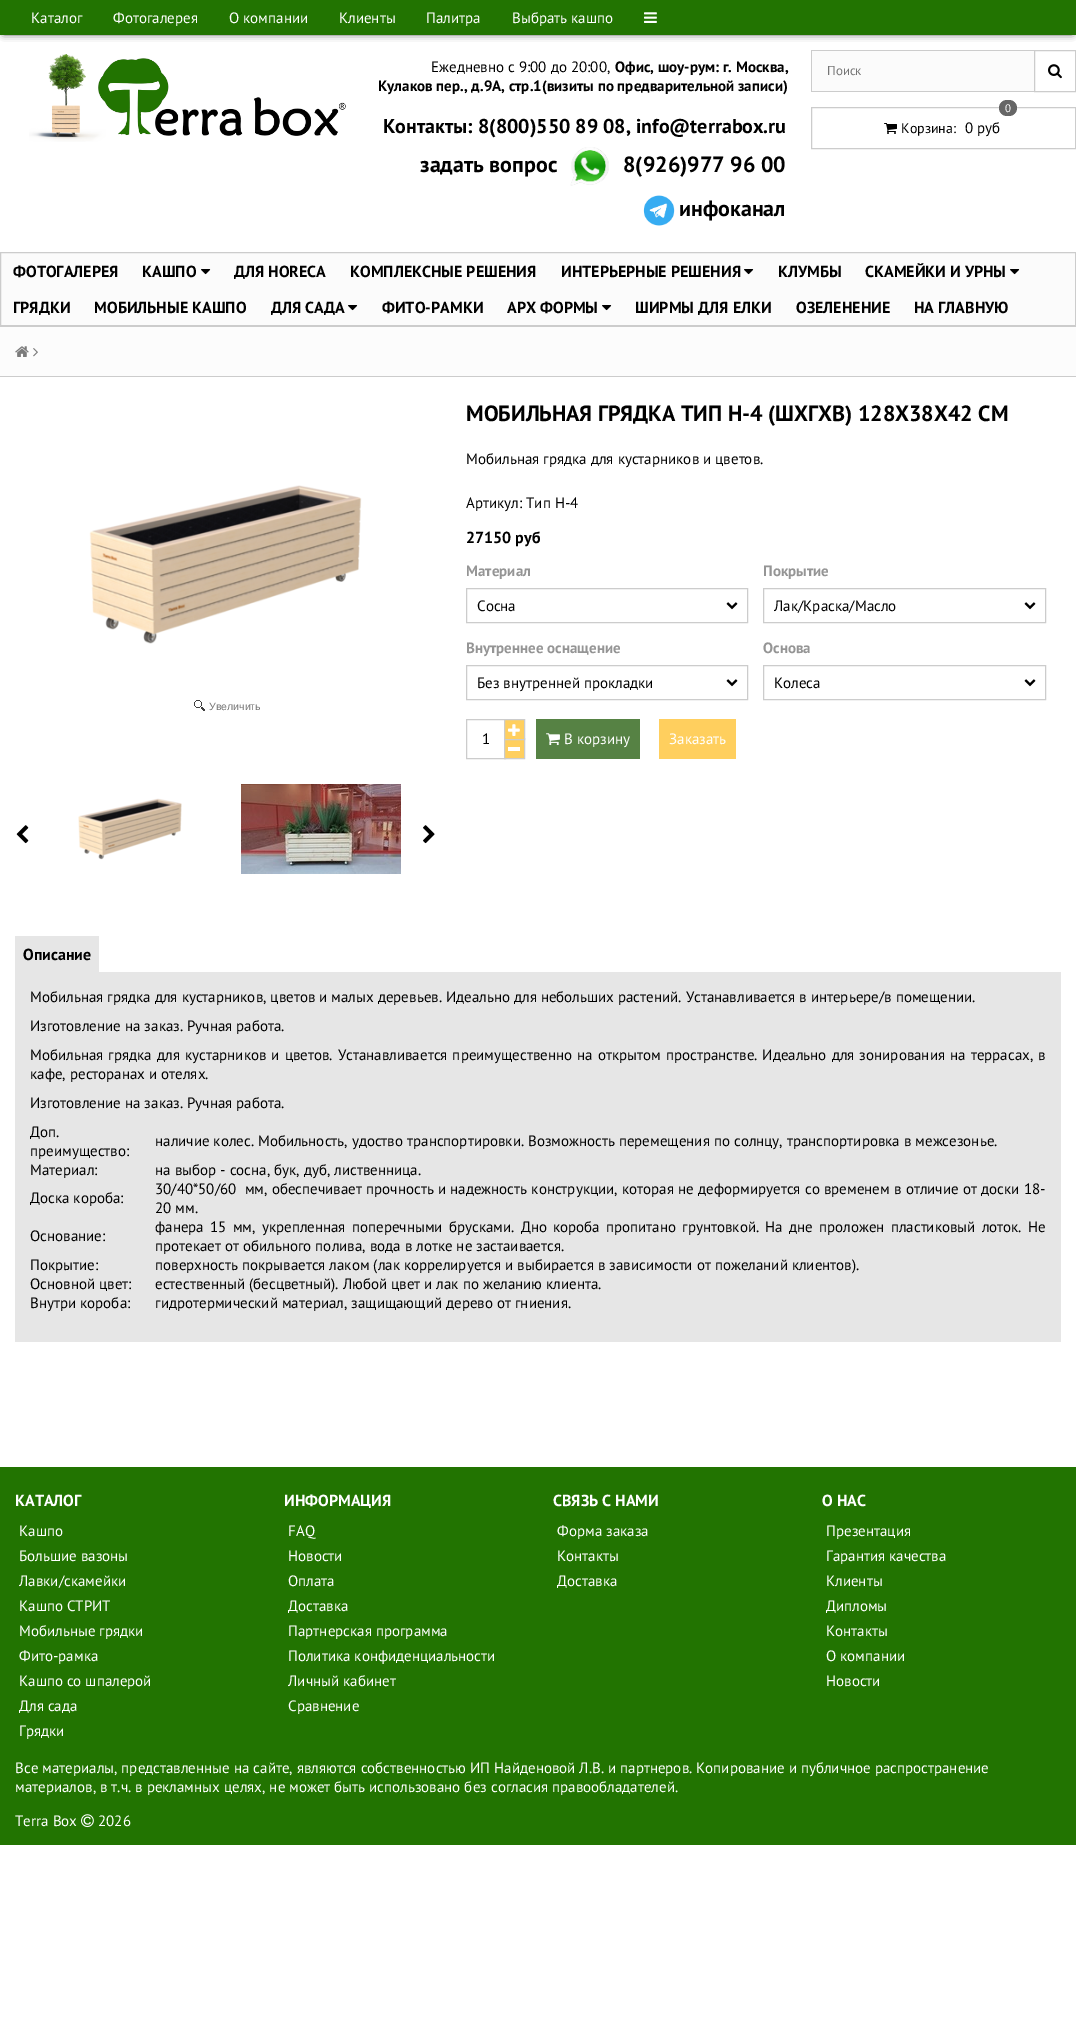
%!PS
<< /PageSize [1076 2043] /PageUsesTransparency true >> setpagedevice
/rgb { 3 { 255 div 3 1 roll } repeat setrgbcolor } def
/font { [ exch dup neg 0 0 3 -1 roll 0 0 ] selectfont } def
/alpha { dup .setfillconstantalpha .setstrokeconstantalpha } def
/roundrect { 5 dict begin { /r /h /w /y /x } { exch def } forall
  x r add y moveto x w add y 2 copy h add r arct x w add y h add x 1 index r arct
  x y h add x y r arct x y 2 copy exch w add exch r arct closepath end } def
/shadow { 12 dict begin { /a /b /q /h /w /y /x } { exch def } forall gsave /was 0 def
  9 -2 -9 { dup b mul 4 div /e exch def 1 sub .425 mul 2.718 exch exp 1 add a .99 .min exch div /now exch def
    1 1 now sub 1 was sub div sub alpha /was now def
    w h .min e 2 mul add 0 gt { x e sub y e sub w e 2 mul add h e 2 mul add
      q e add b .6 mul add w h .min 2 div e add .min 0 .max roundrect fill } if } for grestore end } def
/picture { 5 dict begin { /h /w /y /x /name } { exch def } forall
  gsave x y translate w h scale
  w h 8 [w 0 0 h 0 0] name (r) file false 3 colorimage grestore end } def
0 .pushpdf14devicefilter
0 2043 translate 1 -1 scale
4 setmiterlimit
255 255 255 rgb
0 0 1076 2043 rectfill
0 0 0 rgb
4 6 1068 27 0 4 1 shadow
34 116 1 rgb
0 0 1076 35 rectfill
(img/1.rgb) 644 12 13 11 picture
(img/2.rgb) 29 54 317 88 picture
(img/3.rgb) 570 147 39 39 picture
(img/4.rgb) 643 195 32 31 picture
[
  [812 51 222 40 251 251 251]
  [811 50 223 1 204 204 204]
  [811 91 223 1 204 204 204]
  [811 50 1 42 204 204 204]
] { aload pop rgb rectfill } forall
1034.5 50.5 41 41 rectstroke
(img/5.rgb) 1048 64 14 15 picture
811.5 107.5 264 41 rectstroke
(img/6.rgb) 884 123 13 11 picture
102 102 102 rgb
999 100 18 16 8 roundrect fill
251 251 251 rgb
0.5 252.5 moveto 1075.5 252.5 lineto 1075.5 325.5 lineto 0.5 325.5 lineto closepath gsave fill grestore
204 204 204 rgb
stroke
(img/7.rgb) 201 269 10 6 picture
(img/7.rgb) 744 269 10 6 picture
(img/7.rgb) 1010 269 10 6 picture
(img/7.rgb) 348 305 10 6 picture
(img/7.rgb) 602 305 10 6 picture
[
  [0 327 1076 49 252 252 252]
  [0 326 1076 1 204 204 204]
  [0 376 1076 1 204 204 204]
] { aload pop rgb rectfill } forall
(img/8.rgb) 15 346 14 11 picture
(img/9.rgb) 33 348 5 9 picture
(img/10.rgb) 89 485 273 159 picture
(img/11.rgb) 194 700 11 11 picture
(img/12.rgb) 78 798 104 62 picture
(img/13.rgb) 241 784 160 90 picture
(img/14.rgb) 16 825 13 19 picture
(img/15.rgb) 423 825 12 19 picture
466.5 588.5 281 34 rectstroke
(img/16.rgb) 726 602 12 8 picture
763.5 588.5 282 34 rectstroke
(img/16.rgb) 1024 602 12 8 picture
466.5 665.5 281 34 rectstroke
(img/16.rgb) 726 679 12 8 picture
763.5 665.5 282 34 rectstroke
(img/16.rgb) 1024 679 12 8 picture
466.5 719.5 39 39 rectstroke
255 207 94 rgb
505 740 19 18 rectfill
204 204 204 rgb
504.5 738.5 20 20 rectstroke
255 207 94 rgb
504.5 719.5 moveto 524.5 719.5 lineto 524.5 739.5 lineto 504.5 739.5 lineto closepath gsave fill grestore
204 204 204 rgb
stroke
(img/17.rgb) 508 724 12 12 picture
255 255 255 rgb
508 747 12 4 rectfill
86 130 68 rgb
536 719 104 40 rectfill
(img/18.rgb) 546 733 14 13 picture
[
  [659 719 77 40 255 207 94]
  [15 936 84 36 230 230 230]
  [15 972 1046 370 230 230 230]
  [0 1467 1076 378 34 116 1]
] { aload pop rgb rectfill } forall
(img/19.rgb) 81 1814 13 14 picture
/PTSans-Regular 15 font
255 255 255 rgb
[
  [(Каталог) 31 23]
  [(Фотогалерея) 113 23]
  [(О компании) 229 23]
  [(Клиенты) 339 23]
  [(Палитра) 426 23]
  [(Выбрать кашпо) 512 23]
] { aload pop moveto show } forall
0 0 0 rgb
431 72 moveto (Ежедневно с 9:00 до 20:00,) show
/PTSans-Bold 15 font
615 72 moveto (Офис, шоу-рум: г. Москва,) show
378 91 moveto (Кулаков пер., д.9А, стр.1\(визиты по предварительной записи\)) show
/PTSans-Bold 20 font
383 133 moveto (Контакты: 8\(800\)550 89 08, info@terrabox.ru) show
/PTSans-Bold 22 font
[
  [(задать вопрос) 420 172]
  [(8\(926\)977 96 00) 623 172]
  [(инфоканал) 679 216]
] { aload pop moveto show } forall
/PTSans-Regular 13 font
117 117 117 rgb
827 75 moveto (Поиск) show
/PTSans-Regular 14 font
0 0 0 rgb
901 133 moveto (Корзина:) show
/PTSans-Regular 11 font
255 255 255 rgb
1005 112 moveto (0) show
/PTSans-Regular 15 font
0 0 0 rgb
965 133 moveto (0 руб) show
/PTSans-Bold 16 font
[
  [(ФОТОГАЛЕРЕЯ) 13 277]
  [(КАШПО) 142 277]
  [(ДЛЯ HORECA) 234 277]
  [(КОМПЛЕКСНЫЕ РЕШЕНИЯ) 350 277]
  [(ИНТЕРЬЕРНЫЕ РЕШЕНИЯ) 561 277]
  [(КЛУМБЫ) 778 277]
  [(СКАМЕЙКИ И УРНЫ) 865 277]
  [(ГРЯДКИ) 13 313]
  [(МОБИЛЬНЫЕ КАШПО) 94 313]
  [(ДЛЯ САДА) 271 313]
  [(ФИТО-РАМКИ) 382 313]
  [(АРХ ФОРМЫ) 507 313]
  [(ШИРМЫ ДЛЯ ЕЛКИ) 635 313]
  [(ОЗЕЛЕНЕНИЕ) 796 313]
  [(НА ГЛАВНУЮ) 914 313]
] { aload pop moveto show } forall
/LiberationSans-Regular 10.5 font
117 117 117 rgb
209 710 moveto (Увеличить) show
/PTSans-Bold 22 font
0 0 0 rgb
466 421 moveto (МОБИЛЬНАЯ ГРЯДКА ТИП Н-4 \(ШХГХВ\) 128Х38Х42 СМ) show
/PTSans-Regular 15 font
466 464 moveto (Мобильная грядка для кустарников и цветов.) show
466 508 moveto (Артикул: Тип Н-4) show
/PTSans-Bold 16 font
466 543 moveto (27150 руб) show
/PTSans-Bold 15 font
149 149 149 rgb
466 576 moveto (Материал) show
/PTSans-Regular 15 font
0 0 0 rgb
477 611 moveto (Сосна) show
/PTSans-Bold 15 font
149 149 149 rgb
763 576 moveto (Покрытие) show
/PTSans-Regular 15 font
0 0 0 rgb
774 611 moveto (Лак/Краска/Масло) show
/PTSans-Bold 15 font
149 149 149 rgb
466 653 moveto (Внутреннее оснащение) show
/PTSans-Regular 15 font
0 0 0 rgb
477 688 moveto (Без внутренней прокладки) show
/PTSans-Bold 15 font
149 149 149 rgb
763 653 moveto (Основа) show
/PTSans-Regular 15 font
0 0 0 rgb
774 688 moveto (Колеса) show
482 744 moveto (1) show
255 255 255 rgb
564 744 moveto (В корзину) show
669 744 moveto (Заказать) show
/PTSans-Bold 16 font
0 0 0 rgb
23 960 moveto (Описание) show
/PTSans-Regular 15 font
30 1002 moveto (Мобильная грядка для кустарников, цветов и малых деревьев. Идеально для небольших растений. Устанавливается в интерьере/в помещении.) show
30 1031 moveto (Изготовление на заказ. Ручная работа.) show
30 1060 moveto 1.1 0 32 (Мобильная грядка для кустарников и цветов. Устанавливается преимущественно на открытом пространстве. Идеально для зонирования на террасах, в) widthshow
[
  [(кафе, ресторанах и отелях.) 30 1079]
  [(Изготовление на заказ. Ручная работа.) 30 1108]
  [(Доп.) 30 1137]
  [(преимущество:) 30 1156]
  [(наличие колес. Мобильность, удоство транспортировки. Возможность перемещения по солнцу, транспортировка в межсезонье.) 155 1146]
  [(Материал:) 30 1175]
  [(на выбор - сосна, бук, дуб, лиственница.) 155 1175]
  [(Доска короба:) 30 1203]
] { aload pop moveto show } forall
155 1194 moveto 0.25 0 32 (30/40*50/60  мм, обеспечивает прочность и надежность конструкции, которая не деформируется со временем в отличие от доски 18-) widthshow
155 1213 moveto (20 мм.) show
30 1241 moveto (Основание:) show
155 1232 moveto 2.25 0 32 (фанера 15 мм, укрепленная поперечными брусками. Дно короба пропитано грунтовкой. На дне проложен пластиковый лоток. Не) widthshow
[
  [(протекает от обильного полива, вода в лотке не застаивается.) 155 1251]
  [(Покрытие:) 30 1270]
  [(поверхность покрывается лаком \(лак коррелируется и выбирается в зависимости от пожеланий клиентов\).) 155 1270]
  [(Основной цвет:) 30 1289]
  [(естественный \(бесцветный\). Любой цвет и лак по желанию клиента.) 155 1289]
  [(Внутри короба:) 30 1308]
  [(гидротермический материал, защищающий дерево от гниения.) 155 1308]
] { aload pop moveto show } forall
/PTSans-Bold 16 font
255 255 255 rgb
15 1506 moveto (КАТАЛОГ) show
/PTSans-Regular 15 font
[
  [(Кашпо) 19 1536]
  [(Большие вазоны) 19 1561]
  [(Лавки/скамейки) 19 1586]
  [(Кашпо СТРИТ) 19 1611]
  [(Мобильные грядки) 19 1636]
  [(Фито-рамка) 19 1661]
  [(Кашпо со шпалерой) 19 1686]
  [(Для сада) 19 1711]
  [(Грядки) 19 1736]
] { aload pop moveto show } forall
/PTSans-Bold 16 font
284 1506 moveto (ИНФОРМАЦИЯ) show
/PTSans-Regular 15 font
[
  [(FAQ) 288 1536]
  [(Новости) 288 1561]
  [(Оплата) 288 1586]
  [(Доставка) 288 1611]
  [(Партнерская программа) 288 1636]
  [(Политика конфиденциальности) 288 1661]
  [(Личный кабинет) 288 1686]
  [(Сравнение) 288 1711]
] { aload pop moveto show } forall
/PTSans-Bold 16 font
553 1506 moveto (СВЯЗЬ С НАМИ) show
/PTSans-Regular 15 font
[
  [(Форма заказа) 557 1536]
  [(Контакты) 557 1561]
  [(Доставка) 557 1586]
] { aload pop moveto show } forall
/PTSans-Bold 16 font
822 1506 moveto (О НАС) show
/PTSans-Regular 15 font
[
  [(Презентация) 826 1536]
  [(Гарантия качества) 826 1561]
  [(Клиенты) 826 1586]
  [(Дипломы) 826 1611]
  [(Контакты) 826 1636]
  [(О компании) 826 1661]
  [(Новости) 826 1686]
  [(Все материалы, представленные на сайте, являются собственностью ИП Найденовой Л.В. и партнеров. Копирование и публичное распространение) 15 1773]
  [(материалов, в т.ч. в рекламных целях, не может быть использовано без согласия правообладателей.) 15 1792]
  [(Terra Box) 15 1826]
  [(2026) 98 1826]
] { aload pop moveto show } forall
.poppdf14devicefilter showpage
